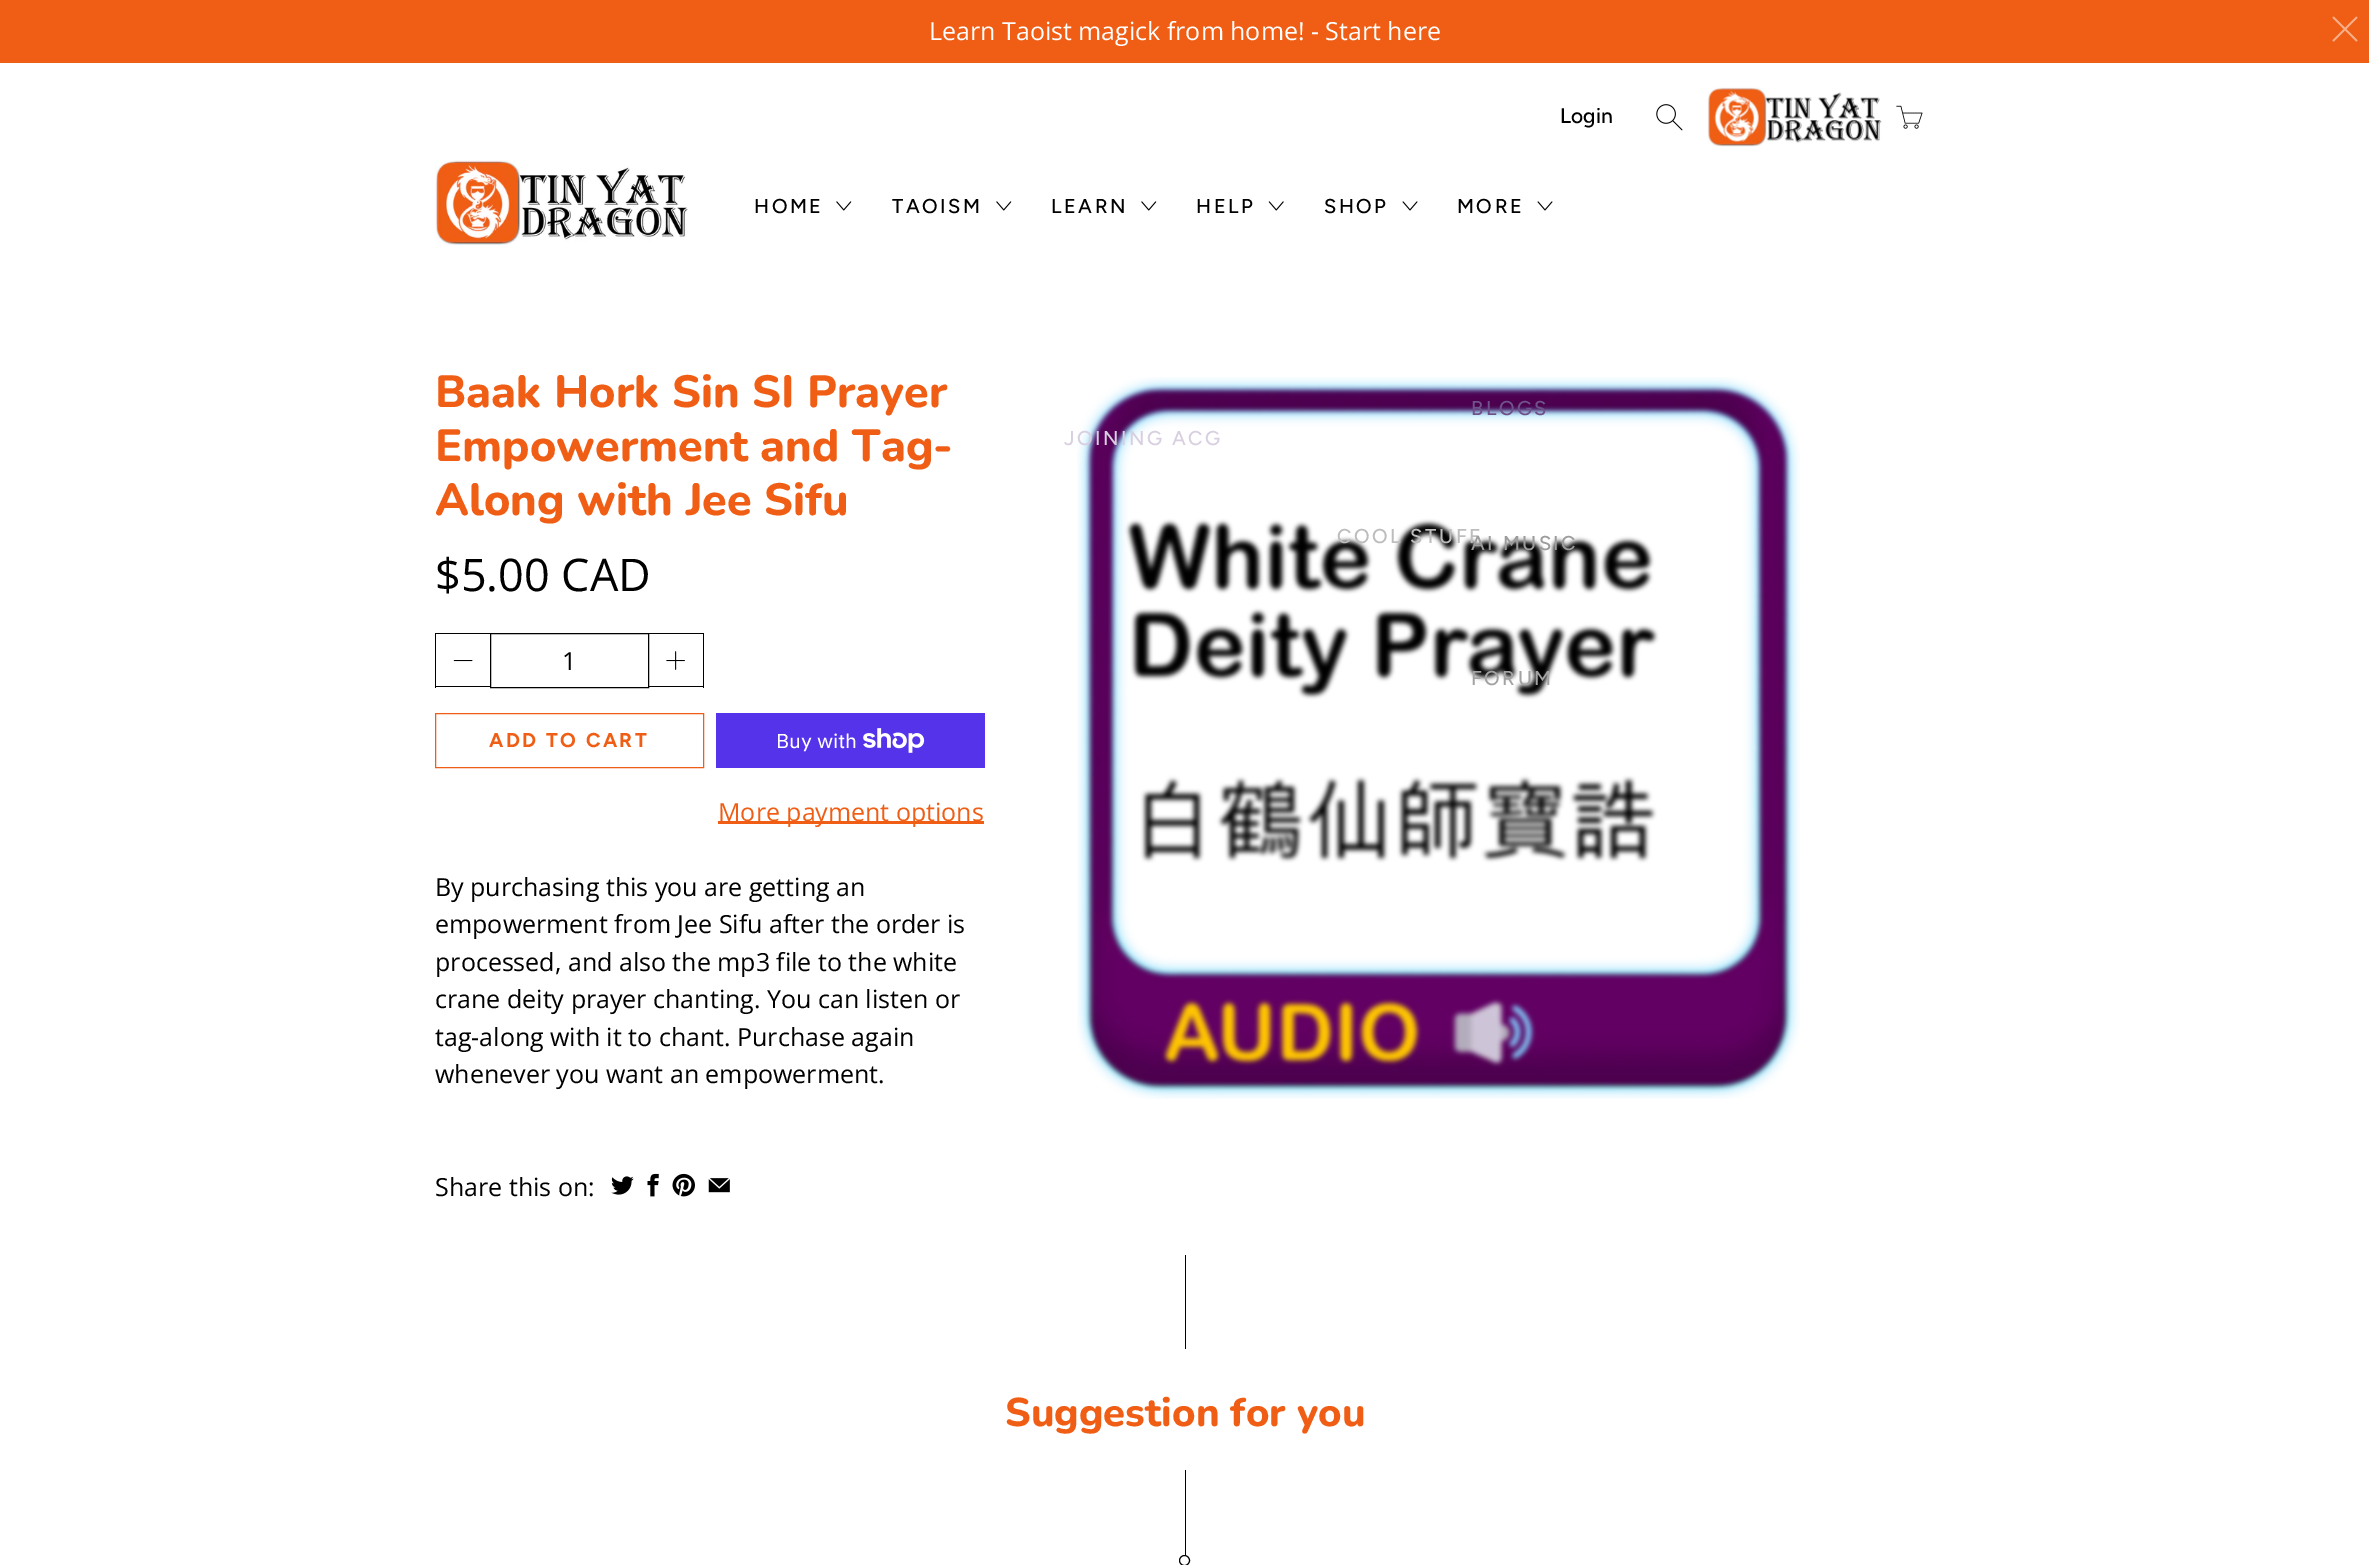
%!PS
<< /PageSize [2369 1565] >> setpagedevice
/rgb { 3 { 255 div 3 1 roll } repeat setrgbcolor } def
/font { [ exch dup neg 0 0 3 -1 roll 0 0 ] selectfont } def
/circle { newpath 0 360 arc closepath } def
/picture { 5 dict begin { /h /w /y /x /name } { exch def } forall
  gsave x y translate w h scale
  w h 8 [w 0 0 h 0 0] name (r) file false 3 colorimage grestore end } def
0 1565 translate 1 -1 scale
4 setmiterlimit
255 255 255 rgb
0 0 2369 1565 rectfill
239 94 20 rgb
0 0 2369 63 rectfill
(img/1.rgb) 2332 16 26 26 picture
(img/2.rgb) 1656 104 27 27 picture
(img/3.rgb) 1707 87 175 60 picture
(img/4.rgb) 1896 105 27 24 picture
(img/5.rgb) 435 160 253 85 picture
(img/6.rgb) 836 201 16 10 picture
(img/6.rgb) 996 201 16 10 picture
(img/6.rgb) 1141 201 16 10 picture
(img/7.rgb) 1268 201 16 10 picture
(img/8.rgb) 1402 201 16 10 picture
(img/8.rgb) 1537 201 16 10 picture
[
  [435 633 55 1 0 0 0]
  [435 686 55 1 0 0 0]
  [435 633 1 55 0 0 0]
] { aload pop rgb rectfill } forall
(img/9.rgb) 453 660 20 2 picture
490.5 633.5 158 54 rectstroke
[
  [649 633 55 1 0 0 0]
  [703 633 1 55 0 0 0]
  [649 686 55 1 0 0 0]
] { aload pop rgb rectfill } forall
(img/10.rgb) 666 651 19 19 picture
239 94 20 rgb
435.5 713.5 268 54 rectstroke
84 51 235 rgb
716 713 269 55 rectfill
(img/11.rgb) 863 728 62 25 picture
239 94 20 rgb
718 821 266 3 rectfill
(img/12.rgb) 611 1176 23 19 picture
(img/13.rgb) 647 1173 12 24 picture
(img/14.rgb) 672 1173 23 24 picture
(img/15.rgb) 708 1178 22 15 picture
(img/16.rgb) 1077 377 723 722 picture
0 0 0 rgb
1185 1255 1 94 rectfill
1185 1470 1 85 rectfill
1184.5 1560.5 5 circle stroke
/OpenSans-Regular 25 font
255 255 255 rgb
929 40 moveto (Learn Taoist magick from home! - Start here) show
/Figtree-Medium 21 font
0 0 0 rgb
1560 123 moveto (Login) show
/Figtree-Medium 20 font
754 213 moveto 2.5 0 (HOME) ashow
892 213 moveto 2.5 0 (TAOISM) ashow
1051 213 moveto 2.5 0 (LEARN) ashow
216 207 225 rgb
1064 445 moveto 2.5 0 (JOINING ACG) ashow
0 0 0 rgb
1196 213 moveto 2.5 0 (HELP) ashow
1324 213 moveto 2.5 0 (SHOP) ashow
189 189 189 rgb
1337 543 moveto 2.5 0 (COOL STUFF) ashow
0 0 0 rgb
1457 213 moveto 2.5 0 (MORE) ashow
111 81 139 rgb
1471 415 moveto 2.5 0 (BLOGS) ashow
156 156 156 rgb
1471 550 moveto 2.5 0 (AI MUSIC) ashow
162 162 162 rgb
1471 685 moveto 2.5 0 (FORUM) ashow
/Nunito-ExtraBold 45 font
239 94 20 rgb
[
  [(Baak Hork Sin SI Prayer) 435 407]
  [(Empowerment and Tag-) 435 461]
  [(Along with Jee Sifu) 435 515]
] { aload pop moveto show } forall
/OpenSans-Regular 45 font
0 0 0 rgb
435 591 moveto ($5.00 CAD) show
/OpenSans-Regular 25 font
562 670 moveto (1) show
/Figtree-Bold 20 font
239 94 20 rgb
489 747 moveto 2.5 0 (ADD TO CART) ashow
/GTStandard-Regular 20 font
255 255 255 rgb
776 748 moveto (Buy with) show
/OpenSans-Regular 25 font
239 94 20 rgb
718 821 moveto (More payment options) show
0 0 0 rgb
[
  [(By purchasing this you are getting an) 435 896]
  [(empowerment from Jee Sifu after the order is) 435 933]
  [(processed, and also the mp3 file to the white) 435 971]
  [(crane deity prayer chanting. You can listen or) 435 1008]
  [(tag-along with it to chant. Purchase again) 435 1046]
  [(whenever you want an empowerment.) 435 1083]
  [(Share this on:) 435 1196]
] { aload pop moveto show } forall
/Nunito-ExtraBold 40 font
239 94 20 rgb
1005 1426 moveto (Suggestion for you) show
showpage
